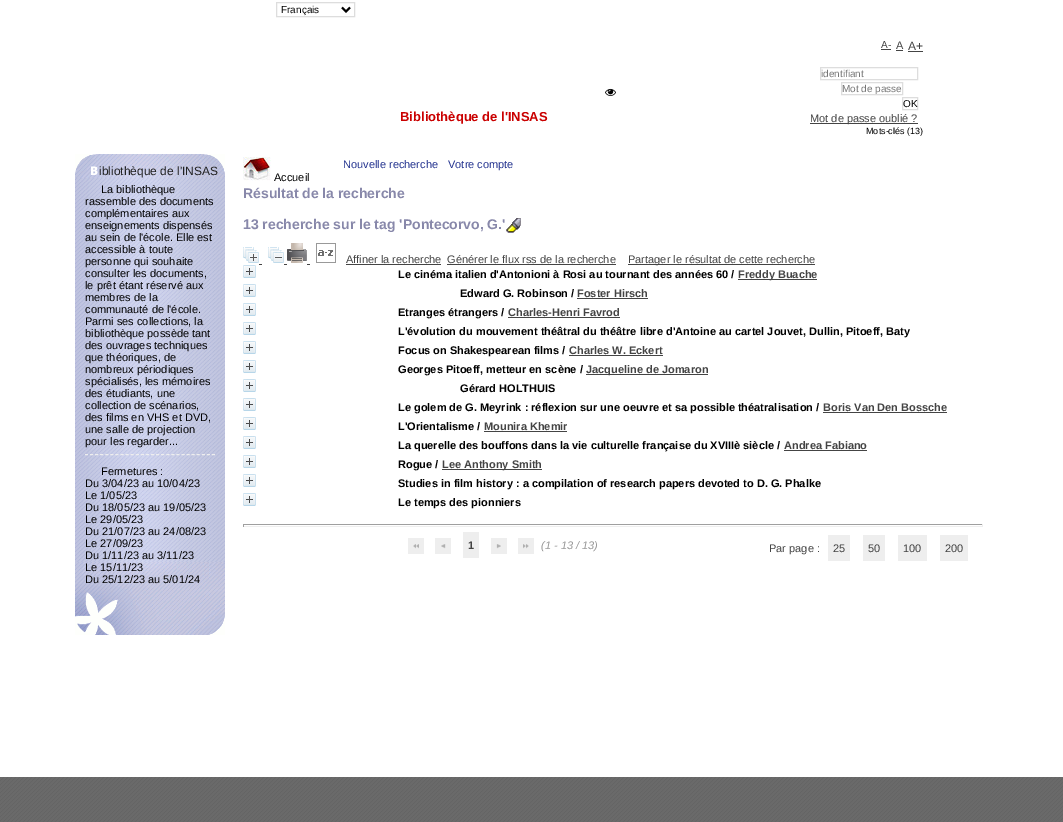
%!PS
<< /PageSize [1063 822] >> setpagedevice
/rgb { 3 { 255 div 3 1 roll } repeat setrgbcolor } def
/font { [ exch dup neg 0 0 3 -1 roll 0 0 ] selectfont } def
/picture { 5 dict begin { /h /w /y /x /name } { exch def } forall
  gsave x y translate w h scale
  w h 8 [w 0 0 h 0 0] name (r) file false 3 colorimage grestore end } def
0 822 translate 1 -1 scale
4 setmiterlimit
255 255 255 rgb
0 0 1063 822 rectfill
221 221 221 rgb
276.5 2.5 78 14 rectstroke
0 0 0 rgb
2 setlinewidth
342 7.5 moveto 346 11.5 lineto 350 7.5 lineto stroke
[
  [881 49 10 1 68 68 68]
  [896 50 7 1 68 68 68]
  [908 51 15 1 68 68 68]
] { aload pop rgb rectfill } forall
221 221 221 rgb
1 setlinewidth
820.5 67.5 97 12 rectstroke
(img/1.rgb) 605 88 11 8 picture
841.5 82.5 61 12 rectstroke
902.5 97.5 15 12 rectstroke
68 68 68 rgb
810 123 108 1 rectfill
(img/2.rgb) 75 178 150 384 picture
(img/3.rgb) 75 154 150 24 picture
238 238 238 rgb
[3 2.08] 0 setdash
85 454.5 moveto 215 454.5 lineto stroke
(img/4.rgb) 75 562 150 73 picture
(img/5.rgb) 243 157 28 24 picture
(img/6.rgb) 506 218 15 15 picture
(img/7.rgb) 243 247 16 16 picture
(img/8.rgb) 268 247 16 16 picture
(img/9.rgb) 287 243 20 20 picture
(img/10.rgb) 316 243 20 20 picture
[
  [346 264 95 1 68 68 68]
  [447 264 169 1 68 68 68]
  [628 264 187 1 68 68 68]
  [259 264 3 1 68 68 68]
  [284 264 3 1 68 68 68]
  [307 264 3 1 68 68 68]
] { aload pop rgb rectfill } forall
(img/11.rgb) 243 265 13 13 picture
738 279 79 1 rectfill
(img/11.rgb) 243 284 13 13 picture
577 298 71 1 rectfill
(img/11.rgb) 243 303 13 13 picture
508 317 112 1 rectfill
(img/11.rgb) 243 322 13 13 picture
(img/11.rgb) 243 341 13 13 picture
569 355 94 1 rectfill
(img/11.rgb) 243 360 13 13 picture
586 374 122 1 rectfill
(img/11.rgb) 243 379 13 13 picture
(img/11.rgb) 243 398 13 13 picture
823 412 124 1 rectfill
(img/11.rgb) 243 417 13 13 picture
484 431 83 1 rectfill
(img/11.rgb) 243 436 13 13 picture
784 450 83 1 rectfill
(img/11.rgb) 243 455 13 13 picture
442 469 100 1 rectfill
(img/11.rgb) 243 474 13 13 picture
(img/11.rgb) 243 493 13 13 picture
[
  [243 524 740 1 159 159 159]
  [982 524 1 3 238 238 238]
  [243 526 740 1 238 238 238]
  [243 524 1 3 159 159 159]
  [408 538 16 16 238 238 238]
] { aload pop rgb rectfill } forall
(img/12.rgb) 413 544 6 5 picture
435 538 16 16 rectfill
(img/13.rgb) 441 544 5 5 picture
463 532 16 26 rectfill
491 538 16 16 rectfill
(img/14.rgb) 496 544 5 5 picture
518 538 16 16 rectfill
(img/15.rgb) 523 544 6 5 picture
[
  [828 535 22 26 238 238 238]
  [863 535 22 26 238 238 238]
  [898 535 29 26 238 238 238]
  [940 535 28 26 238 238 238]
] { aload pop rgb rectfill } forall
(img/16.rgb) 0 777 1063 45 picture
/LiberationSans-Regular 10 font
0 0 0 rgb
281 13 moveto (Français) show
68 68 68 rgb
881 48 moveto (A-) show
/LiberationSans-Regular 11 font
896 49 moveto (A) show
/LiberationSans-Regular 12 font
908 50 moveto (A+) show
/LiberationSans-Regular 10 font
117 117 117 rgb
821 77 moveto (identifiant) show
842 92 moveto (Mot de passe) show
0 0 0 rgb
903 107 moveto (OK) show
/LiberationSans-Regular 11 font
68 68 68 rgb
810 122 moveto (Mot de passe oublié ?) show
/LiberationSans-Regular 9 font
0 0 0 rgb
866 134 moveto (Mots-clés \(13\)) show
/NotoSans-Black 12 font
255 255 255 rgb
90 175 moveto (B) show
/LiberationSans-Regular 12 font
34 34 34 rgb
99 175 moveto (ibliothèque de l'INSAS) show
/LiberationSans-Regular 11 font
0 0 0 rgb
[
  [(La bibliothèque) 101 193]
  [(rassemble des documents) 85 205]
  [(complémentaires aux) 85 217]
  [(enseignements dispensés) 85 229]
  [(au sein de l'école. Elle est) 85 241]
  [(accessible à toute) 85 253]
  [(personne qui souhaite) 85 265]
  [(consulter les documents,) 85 277]
  [(le prêt étant réservé aux) 85 289]
  [(membres de la) 85 301]
  [(communauté de l'école.) 85 313]
  [(Parmi ses collections, la) 85 325]
  [(bibliothèque possède tant) 85 337]
  [(des ouvrages techniques) 85 349]
  [(que théoriques, de) 85 361]
  [(nombreux périodiques) 85 373]
  [(spécialisés, les mémoires) 85 385]
  [(des étudiants, une) 85 397]
  [(collection de scénarios,) 85 409]
  [(des films en VHS et DVD,) 85 421]
  [(une salle de projection) 85 433]
  [(pour les regarder...) 85 445]
  [(Fermetures :) 101 475]
  [(Du 3/04/23 au 10/04/23) 85 487]
  [(Le 1/05/23) 85 499]
  [(Du 18/05/23 au 19/05/23) 85 511]
  [(Le 29/05/23) 85 523]
  [(Du 21/07/23 au 24/08/23) 85 535]
  [(Le 27/09/23) 85 547]
  [(Du 1/11/23 au 3/11/23) 85 559]
  [(Le 15/11/23) 85 571]
  [(Du 25/12/23 au 5/01/24) 85 583]
] { aload pop moveto show } forall
/LiberationSans-Bold 13 font
202 0 0 rgb
400 121 moveto (Bibliothèque de l'INSAS) show
/LiberationSans-Regular 11 font
35 51 143 rgb
343 168 moveto (Nouvelle recherche) show
448 168 moveto (Votre compte) show
0 0 0 rgb
274 181 moveto (Accueil) show
/LiberationSans-Bold 14 font
136 136 170 rgb
243 198 moveto (Résultat de la recherche) show
243 229 moveto (13 recherche sur le tag 'Pontecorvo, G.') show
/LiberationSans-Regular 11 font
68 68 68 rgb
[
  [(Affiner la recherche) 346 263]
  [(Générer le flux rss de la recherche) 447 263]
  [(Partager le résultat de cette recherche) 628 263]
] { aload pop moveto show } forall
/LiberationSans-Bold 11 font
0 0 0 rgb
398 278 moveto (Le cinéma italien d'Antonioni à Rosi au tournant des années 60 /) show
68 68 68 rgb
738 278 moveto (Freddy Buache) show
0 0 0 rgb
460 297 moveto (Edward G. Robinson /) show
68 68 68 rgb
577 297 moveto (Foster Hirsch) show
0 0 0 rgb
398 316 moveto (Etranges étrangers /) show
68 68 68 rgb
508 316 moveto (Charles-Henri Favrod) show
0 0 0 rgb
398 335 moveto (L'évolution du mouvement théâtral du théâtre libre d'Antoine au cartel Jouvet, Dullin, Pitoeff, Baty) show
398 354 moveto (Focus on Shakespearean films /) show
68 68 68 rgb
569 354 moveto (Charles W. Eckert) show
0 0 0 rgb
398 373 moveto (Georges Pitoeff, metteur en scène /) show
68 68 68 rgb
586 373 moveto (Jacqueline de Jomaron) show
0 0 0 rgb
460 392 moveto (Gérard HOLTHUIS) show
398 411 moveto (Le golem de G. Meyrink : réflexion sur une oeuvre et sa possible théatralisation /) show
68 68 68 rgb
823 411 moveto (Boris Van Den Bossche) show
0 0 0 rgb
398 430 moveto (L'Orientalisme /) show
68 68 68 rgb
484 430 moveto (Mounira Khemir) show
0 0 0 rgb
398 449 moveto (La querelle des bouffons dans la vie culturelle française du XVIIIè siècle /) show
68 68 68 rgb
784 449 moveto (Andrea Fabiano) show
0 0 0 rgb
398 468 moveto (Rogue /) show
68 68 68 rgb
442 468 moveto (Lee Anthony Smith) show
0 0 0 rgb
398 487 moveto (Studies in film history : a compilation of research papers devoted to D. G. Phalke) show
398 506 moveto (Le temps des pionniers) show
68 68 68 rgb
468 549 moveto (1) show
/LiberationSans-Italic 11 font
153 153 153 rgb
541 549 moveto (\(1 - 13 / 13\)) show
/LiberationSans-Regular 11 font
68 68 68 rgb
[
  [(Par page :) 769 552]
  [(25) 833 552]
  [(50) 868 552]
  [(100) 903 552]
  [(200) 945 552]
] { aload pop moveto show } forall
showpage
